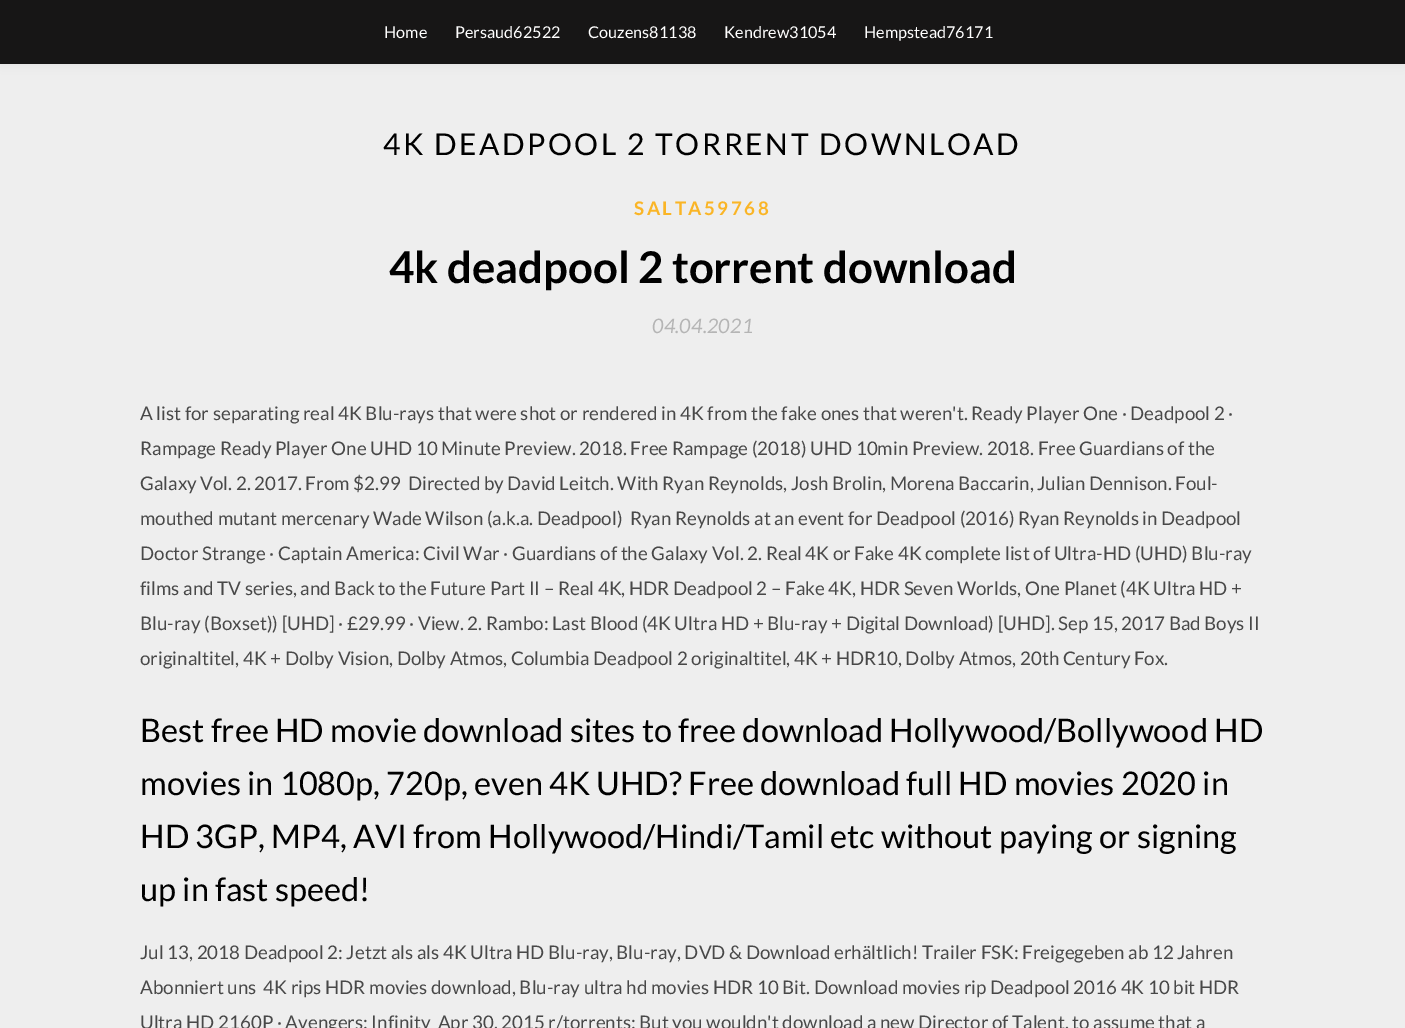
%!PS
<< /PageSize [1405 1028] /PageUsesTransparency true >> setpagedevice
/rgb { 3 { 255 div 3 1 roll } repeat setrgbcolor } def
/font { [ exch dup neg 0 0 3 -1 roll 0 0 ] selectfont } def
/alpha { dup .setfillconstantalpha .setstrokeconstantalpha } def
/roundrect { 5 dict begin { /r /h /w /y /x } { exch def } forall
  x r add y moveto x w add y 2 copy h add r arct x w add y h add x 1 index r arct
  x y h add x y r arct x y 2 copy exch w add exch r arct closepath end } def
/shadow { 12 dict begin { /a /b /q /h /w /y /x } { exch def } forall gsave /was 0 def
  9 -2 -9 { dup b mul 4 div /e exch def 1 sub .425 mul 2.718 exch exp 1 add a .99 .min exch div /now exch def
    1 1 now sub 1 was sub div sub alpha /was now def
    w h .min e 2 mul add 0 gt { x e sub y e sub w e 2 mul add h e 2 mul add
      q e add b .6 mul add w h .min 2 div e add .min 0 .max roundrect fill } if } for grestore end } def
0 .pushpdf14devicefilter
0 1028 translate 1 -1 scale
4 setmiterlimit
238 238 238 rgb
0 0 1405 1028 rectfill
0 0 0 rgb
0 0 1405 64 0 6 0.05 shadow
23 22 22 rgb
0 0 1405 64 rectfill
/Lato-Regular 16.25 font
255 255 255 rgb
[
  [(Home) 384 38]
  [(Persaud62522) 455 38]
  [(Couzens81138) 588 38]
  [(Kendrew31054) 724 38]
  [(Hempstead76171) 864 38]
] { aload pop moveto show } forall
/Lato-Regular 30 font
0 0 0 rgb
383 155 moveto 2.5 0 (4K DEADPOOL 2 TORRENT DOWNLOAD) ashow
/Lato-Bold 18.75 font
250 181 38 rgb
634 215 moveto 2.5 0 (SALTA59768) ashow
/Lato-Bold 43.75 font
0 0 0 rgb
389 283 moveto (4k deadpool 2 torrent download) show
/Lato-Italic 20 font
181 181 181 rgb
652 333 moveto (04.04.2021) show
/Lato-Regular 18.75 font
72 72 72 rgb
[
  [(A list for separating real 4K Blu-rays that were shot or rendered in 4K from the fake ones that weren't. Ready Player One · Deadpool 2 ·) 140 420]
  [(Rampage Ready Player One UHD 10 Minute Preview. 2018. Free Rampage \(2018\) UHD 10min Preview. 2018. Free Guardians of the) 140 455]
  [(Galaxy Vol. 2. 2017. From $2.99  Directed by David Leitch. With Ryan Reynolds, Josh Brolin, Morena Baccarin, Julian Dennison. Foul-) 140 490]
  [(mouthed mutant mercenary Wade Wilson \(a.k.a. Deadpool\)  Ryan Reynolds at an event for Deadpool \(2016\) Ryan Reynolds in Deadpool) 140 525]
  [(Doctor Strange · Captain America: Civil War · Guardians of the Galaxy Vol. 2. Real 4K or Fake 4K complete list of Ultra-HD \(UHD\) Blu-ray) 140 560]
  [(films and TV series, and Back to the Future Part II – Real 4K, HDR Deadpool 2 – Fake 4K, HDR Seven Worlds, One Planet \(4K Ultra HD +) 140 595]
  [(Blu-ray \(Boxset\)\) [UHD] · £29.99 · View. 2. Rambo: Last Blood \(4K Ultra HD + Blu-ray + Digital Download\) [UHD]. Sep 15, 2017 Bad Boys II) 140 630]
  [(originaltitel, 4K + Dolby Vision, Dolby Atmos, Columbia Deadpool 2 originaltitel, 4K + HDR10, Dolby Atmos, 20th Century Fox.) 140 665]
] { aload pop moveto show } forall
/Lato-Regular 32.5 font
0 0 0 rgb
[
  [(Best free HD movie download sites to free download Hollywood/Bollywood HD) 140 742]
  [(movies in 1080p, 720p, even 4K UHD? Free download full HD movies 2020 in) 140 795]
  [(HD 3GP, MP4, AVI from Hollywood/Hindi/Tamil etc without paying or signing) 140 848]
  [(up in fast speed!) 140 901]
] { aload pop moveto show } forall
/Lato-Regular 18.75 font
72 72 72 rgb
[
  [(Jul 13, 2018 Deadpool 2: Jetzt als als 4K Ultra HD Blu-ray, Blu-ray, DVD & Download erhältlich! Trailer FSK: Freigegeben ab 12 Jahren) 140 959]
  [(Abonniert uns  4K rips HDR movies download, Blu-ray ultra hd movies HDR 10 Bit. Download movies rip Deadpool 2016 4K 10 bit HDR) 140 994]
  [(Ultra HD 2160P · Avengers: Infinity  Apr 30, 2015 r/torrents: But you wouldn't download a new Director of Talent. to assume that a) 140 1029]
] { aload pop moveto show } forall
.poppdf14devicefilter showpage
